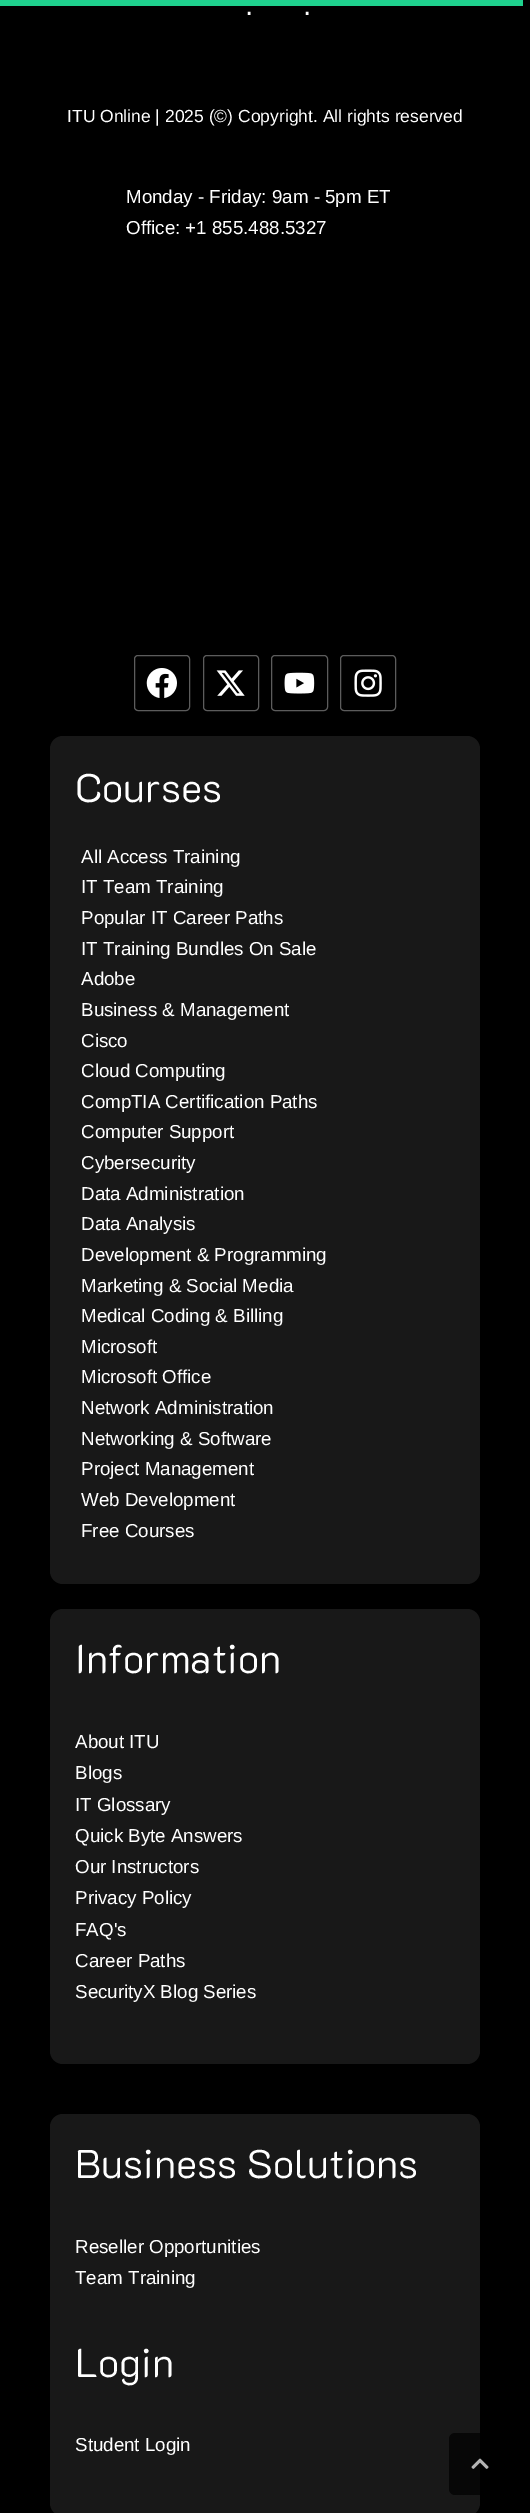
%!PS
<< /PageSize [530 2513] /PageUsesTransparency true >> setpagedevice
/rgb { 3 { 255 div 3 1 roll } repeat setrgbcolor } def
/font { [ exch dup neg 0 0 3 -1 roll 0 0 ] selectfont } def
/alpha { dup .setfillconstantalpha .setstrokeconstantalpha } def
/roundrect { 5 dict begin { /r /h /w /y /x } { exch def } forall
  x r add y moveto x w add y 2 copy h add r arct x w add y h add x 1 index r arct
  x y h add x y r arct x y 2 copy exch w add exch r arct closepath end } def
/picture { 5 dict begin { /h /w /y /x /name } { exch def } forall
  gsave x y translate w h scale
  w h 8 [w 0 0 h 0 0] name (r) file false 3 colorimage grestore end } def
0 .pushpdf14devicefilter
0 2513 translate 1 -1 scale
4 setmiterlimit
0 0 0 rgb
0 0 530 2513 rectfill
31 209 142 rgb
0 0 523 6 rectfill
92 92 92 rgb
134.5 655.5 55 55 3.5 roundrect stroke
(img/1.rgb) 146 668 31 30 picture
203.5 655.5 55 55 3.5 roundrect stroke
(img/2.rgb) 216 670 29 26 picture
271.5 655.5 56 55 3.5 roundrect stroke
(img/3.rgb) 284 672 31 22 picture
340.5 655.5 55 55 3.5 roundrect stroke
(img/4.rgb) 354 669 28 28 picture
24 24 24 rgb
50 736 430 848 13 roundrect fill
50 1609 430 455 13 roundrect fill
50 2114 430 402 13 roundrect fill
0.7 alpha
0 0 0 rgb
449 2433 62 62 6 roundrect fill
1 alpha
(img/5.rgb) 471 2458 18 11 picture
/LiberationSans-Regular 30 font
255 255 255 rgb
245 15 moveto (.) show
303 15 moveto (.) show
/LiberationSans-Regular 17.5 font
67 122 moveto (ITU Online | 2025 \(©\) Copyright. All rights reserved) show
/LiberationSans-Regular 18.75 font
126 203 moveto (Monday - Friday: 9am - 5pm ET) show
126 234 moveto (Office: +1 855.488.5327) show
/K2D-Light 40 font
75 802 moveto (Courses) show
/LiberationSans-Regular 18.75 font
[
  [(All Access Training) 81 863]
  [(IT Team Training) 81 893]
  [(Popular IT Career Paths) 81 924]
  [(IT Training Bundles On Sale) 81 955]
  [(Adobe) 81 985]
  [(Business & Management) 81 1016]
  [(Cisco) 81 1047]
  [(Cloud Computing) 81 1077]
  [(CompTIA Certification Paths) 81 1108]
  [(Computer Support) 81 1138]
  [(Cybersecurity) 81 1169]
  [(Data Administration) 81 1200]
  [(Data Analysis) 81 1230]
  [(Development & Programming) 81 1261]
  [(Marketing & Social Media) 81 1292]
  [(Medical Coding & Billing) 81 1322]
  [(Microsoft) 81 1353]
  [(Microsoft Office) 81 1383]
  [(Network Administration) 81 1414]
  [(Networking & Software) 81 1445]
  [(Project Management) 81 1475]
  [(Web Development) 81 1506]
  [(Free Courses) 81 1537]
] { aload pop moveto show } forall
/K2D-Light 40 font
75 1673 moveto (Information) show
/LiberationSans-Regular 18.75 font
[
  [(About ITU) 75 1748]
  [(Blogs) 75 1779]
  [(IT Glossary) 75 1811]
  [(Quick Byte Answers) 75 1842]
  [(Our Instructors) 75 1873]
  [(Privacy Policy) 75 1904]
  [(FAQ's) 75 1936]
  [(Career Paths) 75 1967]
  [(SecurityX Blog Series) 75 1998]
] { aload pop moveto show } forall
/K2D-Light 40 font
75 2178 moveto (Business Solutions) show
/LiberationSans-Regular 18.75 font
75 2253 moveto (Reseller Opportunities) show
75 2284 moveto (Team Training) show
/K2D-Light 40 font
75 2377 moveto (Login) show
/LiberationSans-Regular 18.75 font
75 2451 moveto (Student Login) show
.poppdf14devicefilter showpage
